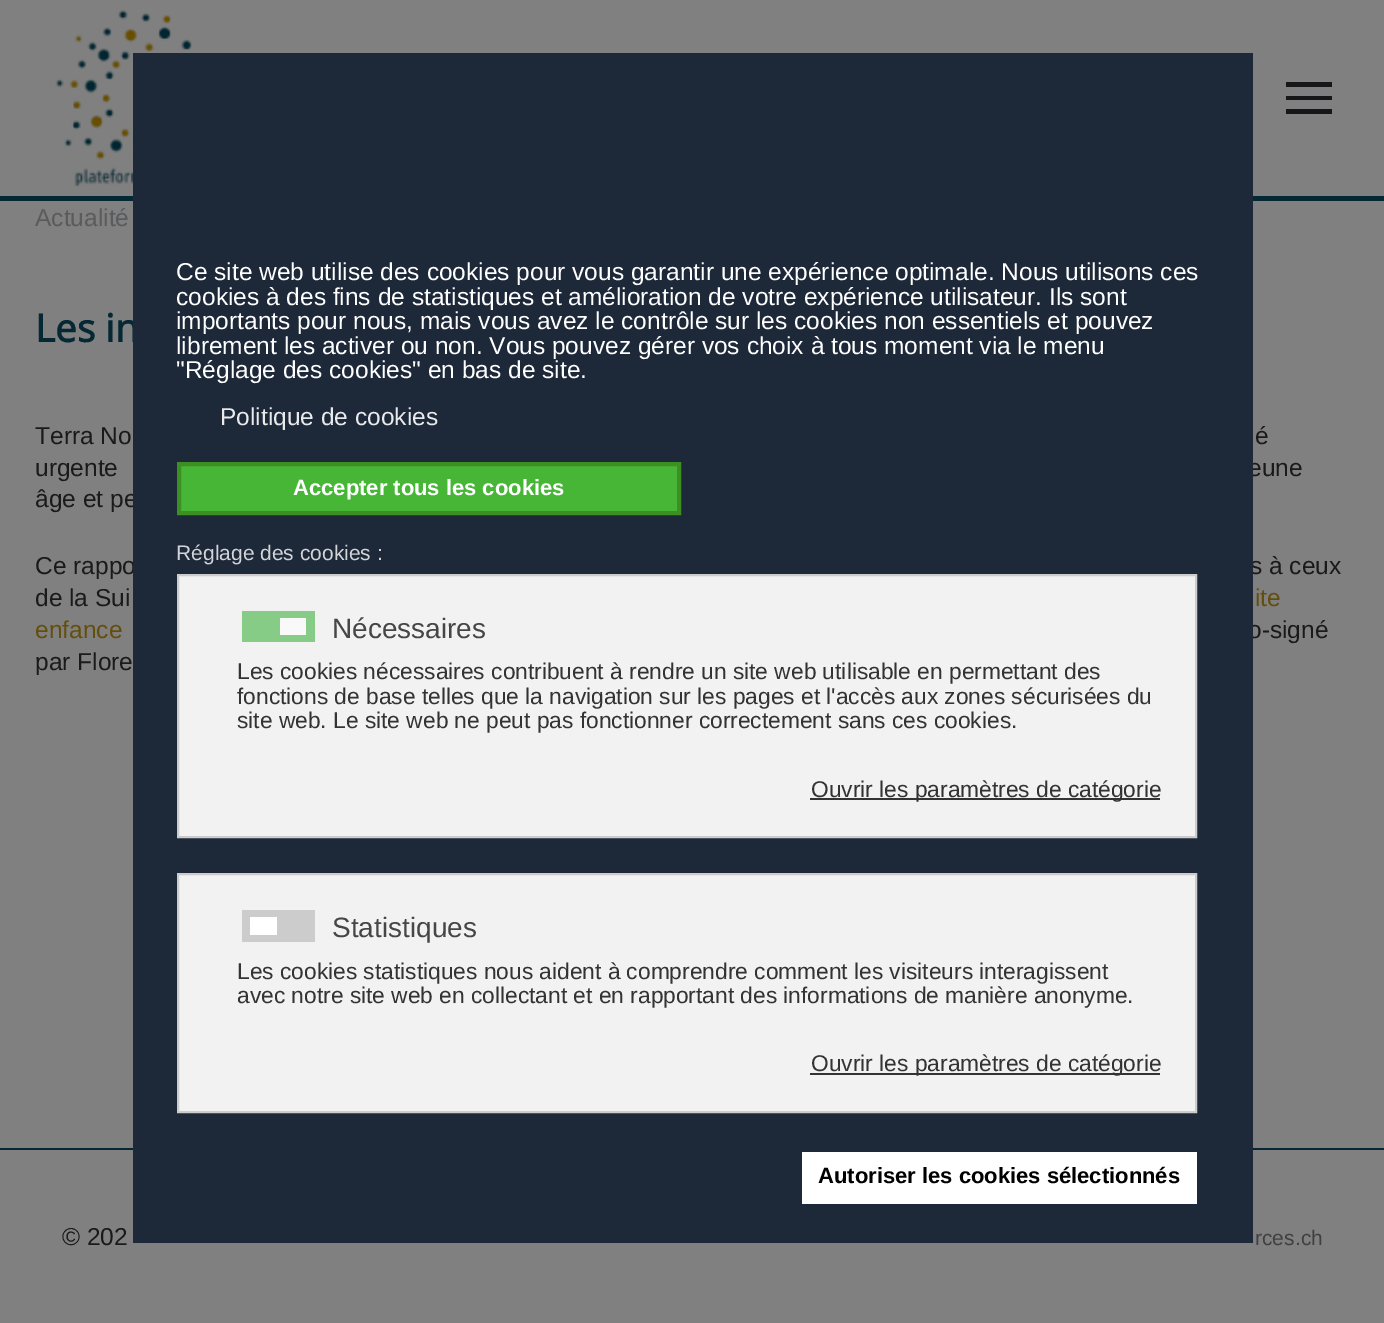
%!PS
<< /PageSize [1384 1323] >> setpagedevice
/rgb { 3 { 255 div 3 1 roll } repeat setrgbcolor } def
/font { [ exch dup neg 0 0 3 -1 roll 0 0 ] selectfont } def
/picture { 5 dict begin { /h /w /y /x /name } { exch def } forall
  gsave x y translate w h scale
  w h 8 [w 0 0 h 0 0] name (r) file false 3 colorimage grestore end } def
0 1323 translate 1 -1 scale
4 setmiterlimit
128 128 128 rgb
0 0 1384 1323 rectfill
6 40 52 rgb
0 196 1384 5 rectfill
(img/1.rgb) 55 10 137 177 picture
[
  [1286 82 46 5 23 23 26]
  [1286 96 46 4 23 23 26]
  [1286 109 46 5 23 23 26]
  [0 1148 1384 2 6 40 52]
] { aload pop rgb rectfill } forall
/LiberationSans-Regular 24.5 font
90 91 93 rgb
35 226 moveto (Actualité) show
/OpenSans-Bold 38.5 font
6 40 52 rgb
35 342 moveto (Les in) show
/LiberationSans-Regular 24.5 font
26 26 26 rgb
[
  [(Terra No) 35 444]
  [(é) 1255 444]
  [(urgente) 35 476]
  [(eune) 1248 476]
  [(âge et pe) 35 507]
  [(Ce rappo) 35 574]
  [(s à ceux) 1250 574]
  [(de la Sui) 35 606]
] { aload pop moveto show } forall
100 78 13 rgb
1255 606 moveto (ite) show
35 638 moveto (enfance) show
26 26 26 rgb
[
  [(o-signé) 1248 638]
  [(par Flore) 35 670]
  [(© 202) 62 1245]
] { aload pop moveto show } forall
/LiberationSans-Regular 21 font
64 64 64 rgb
1255 1245 moveto (rces.ch) show
29 40 57 rgb
133 53 1120 1190 rectfill
/LiberationSans-Regular 24.5 font
255 255 255 rgb
[
  [(Ce site web utilise des cookies pour vous garantir une expérience optimale. Nous utilisons ces) 176 280]
  [(cookies à des fins de statistiques et amélioration de votre expérience utilisateur. Ils sont) 176 305]
  [(importants pour nous, mais vous avez le contrôle sur les cookies non essentiels et pouvez) 176 329]
  [(librement les activer ou non. Vous pouvez gérer vos choix à tous moment via le menu) 176 354]
  [("Réglage des cookies" en bas de site.) 176 378]
] { aload pop moveto show } forall
232 234 235 rgb
220 425 moveto (Politique de cookies) show
71 182 54 rgb
179 464 moveto 679 464 lineto 679 513 lineto 179 513 lineto closepath gsave fill grestore
60 143 33 rgb
4 setlinewidth
stroke
/LiberationSans-Bold 22 font
255 255 255 rgb
293 495 moveto (Accepter tous les cookies) show
/LiberationSans-Regular 21 font
210 212 215 rgb
176 560 moveto (Réglage des cookies :) show
242 242 242 rgb
178 575 moveto 1196 575 lineto 1196 837 lineto 178 837 lineto closepath gsave fill grestore
204 204 204 rgb
2 setlinewidth
stroke
134 203 134 rgb
242 611 73 31 rectfill
249 249 249 rgb
280 618 26 17 rectfill
/LiberationSans-Regular 28 font
70 70 70 rgb
332 638 moveto (Nécessaires) show
/LiberationSans-Regular 22.75 font
51 51 51 rgb
[
  [(Les cookies nécessaires contribuent à rendre un site web utilisable en permettant des) 237 679]
  [(fonctions de base telles que la navigation sur les pages et l'accès aux zones sécurisées du) 237 704]
  [(site web. Le site web ne peut pas fonctionner correctement sans ces cookies.) 237 728]
] { aload pop moveto show } forall
810 798 350 2 rectfill
811 797 moveto (Ouvrir les paramètres de catégorie) show
242 242 242 rgb
178 874 moveto 1196 874 lineto 1196 1112 lineto 178 1112 lineto closepath gsave fill grestore
204 204 204 rgb
stroke
242 910 73 32 rectfill
255 255 255 rgb
250 917 27 18 rectfill
/LiberationSans-Regular 28 font
70 70 70 rgb
332 937 moveto (Statistiques) show
/LiberationSans-Regular 22.75 font
51 51 51 rgb
237 979 moveto (Les cookies statistiques nous aident à comprendre comment les visiteurs interagissent) show
237 1003 moveto (avec notre site web en collectant et en rapportant des informations de manière anonyme.) show
810 1073 350 2 rectfill
811 1071 moveto (Ouvrir les paramètres de catégorie) show
255 255 255 rgb
802 1152 395 52 rectfill
/LiberationSans-Bold 22 font
0 0 0 rgb
818 1183 moveto (Autoriser les cookies sélectionnés) show
showpage
